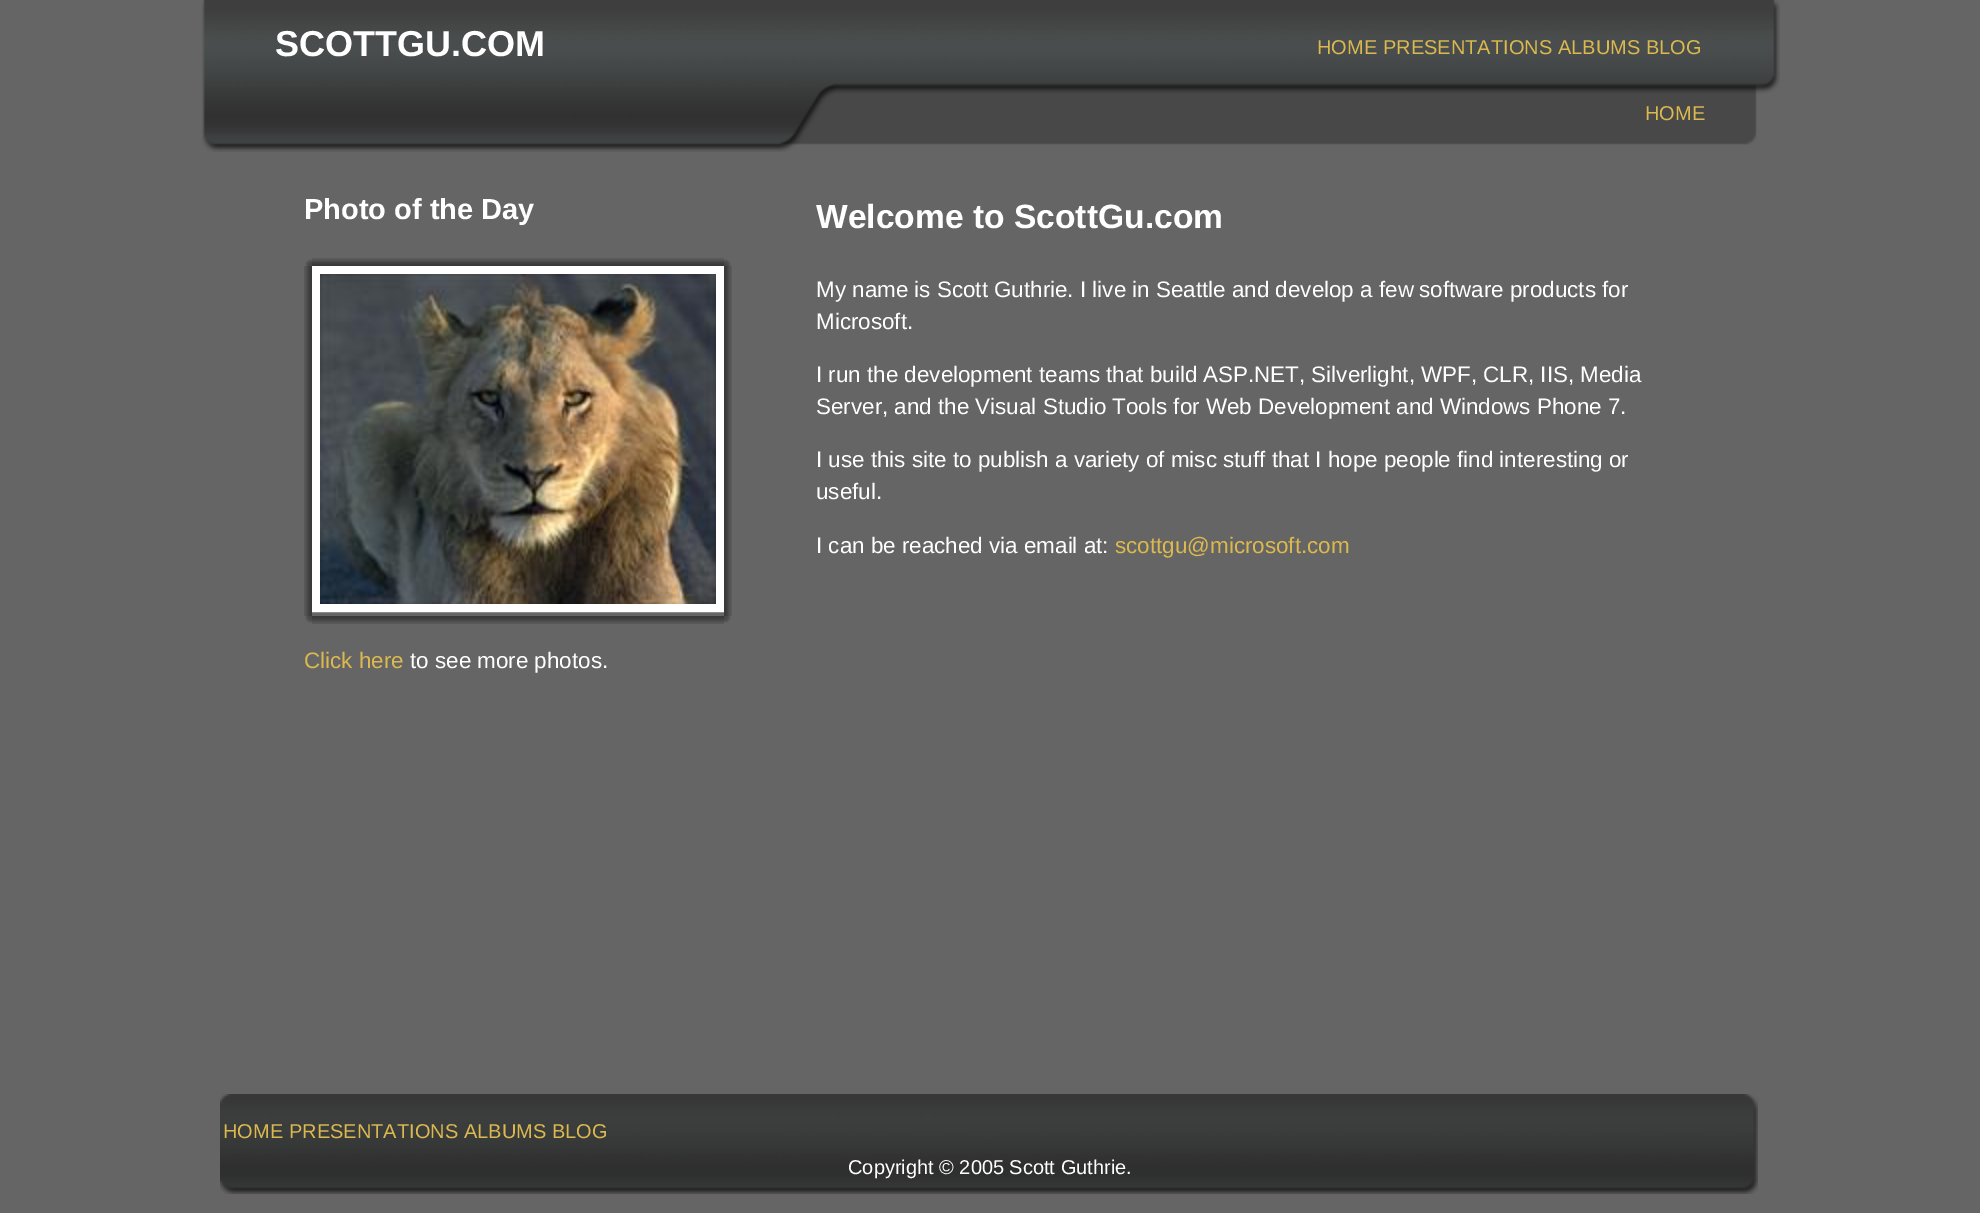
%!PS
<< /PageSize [1980 1213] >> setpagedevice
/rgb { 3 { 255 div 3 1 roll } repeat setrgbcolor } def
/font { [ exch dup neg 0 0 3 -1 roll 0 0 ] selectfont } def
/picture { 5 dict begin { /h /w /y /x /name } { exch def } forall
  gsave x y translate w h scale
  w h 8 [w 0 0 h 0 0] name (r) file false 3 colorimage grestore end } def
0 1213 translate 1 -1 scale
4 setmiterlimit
101 101 101 rgb
0 0 1980 1213 rectfill
(img/1.rgb) 202 0 1578 152 picture
(img/2.rgb) 305 259 7 7 picture
(img/3.rgb) 312 258 412 8 picture
(img/4.rgb) 724 259 7 7 picture
(img/5.rgb) 304 266 8 350 picture
255 255 255 rgb
8 setlinewidth
316 270 404 338 rectstroke
(img/6.rgb) 320 274 396 330 picture
(img/7.rgb) 724 266 8 350 picture
(img/8.rgb) 305 616 7 7 picture
(img/9.rgb) 312 616 412 8 picture
(img/10.rgb) 724 616 7 7 picture
(img/11.rgb) 220 1094 1538 100 picture
/LiberationSans-Bold 36 font
275 56 moveto (SCOTTGU.COM) show
/LiberationSans-Regular 20 font
219 185 79 rgb
[
  [(HOME) 1317 54]
  [(PRESENTATIONS) 1383 54]
  [(ALBUMS) 1558 54]
  [(BLOG) 1646 54]
  [(HOME) 1645 120]
] { aload pop moveto show } forall
/LiberationSans-Bold 29 font
255 255 255 rgb
304 219 moveto (Photo of the Day) show
/LiberationSans-Regular 22.4 font
219 185 79 rgb
304 668 moveto (Click here) show
255 255 255 rgb
410 668 moveto (to see more photos.) show
/LiberationSans-Bold 33.6 font
816 228 moveto (Welcome to ScottGu.com) show
/LiberationSans-Regular 22.4 font
[
  [(My name is Scott Guthrie.) 816 297]
  [(I live in Seattle and develop a few) 1080 297]
  [(software products for) 1419 297]
  [(Microsoft.) 816 329]
  [(I run the development teams that build ASP.NET, Silverlight, WPF, CLR, IIS, Media) 816 382]
  [(Server, and the Visual Studio Tools for Web Development and Windows Phone 7.) 816 414]
  [(I use this site to publish a variety of misc stuff that I hope people find interesting or) 816 467]
  [(useful.) 816 499]
  [(I can be reached via email at:) 816 553]
] { aload pop moveto show } forall
219 185 79 rgb
1115 553 moveto (scottgu@microsoft.com) show
/LiberationSans-Regular 20 font
[
  [(HOME) 223 1138]
  [(PRESENTATIONS) 289 1138]
  [(ALBUMS) 464 1138]
  [(BLOG) 552 1138]
] { aload pop moveto show } forall
255 255 255 rgb
848 1174 moveto (Copyright © 2005 Scott Guthrie.) show
showpage
